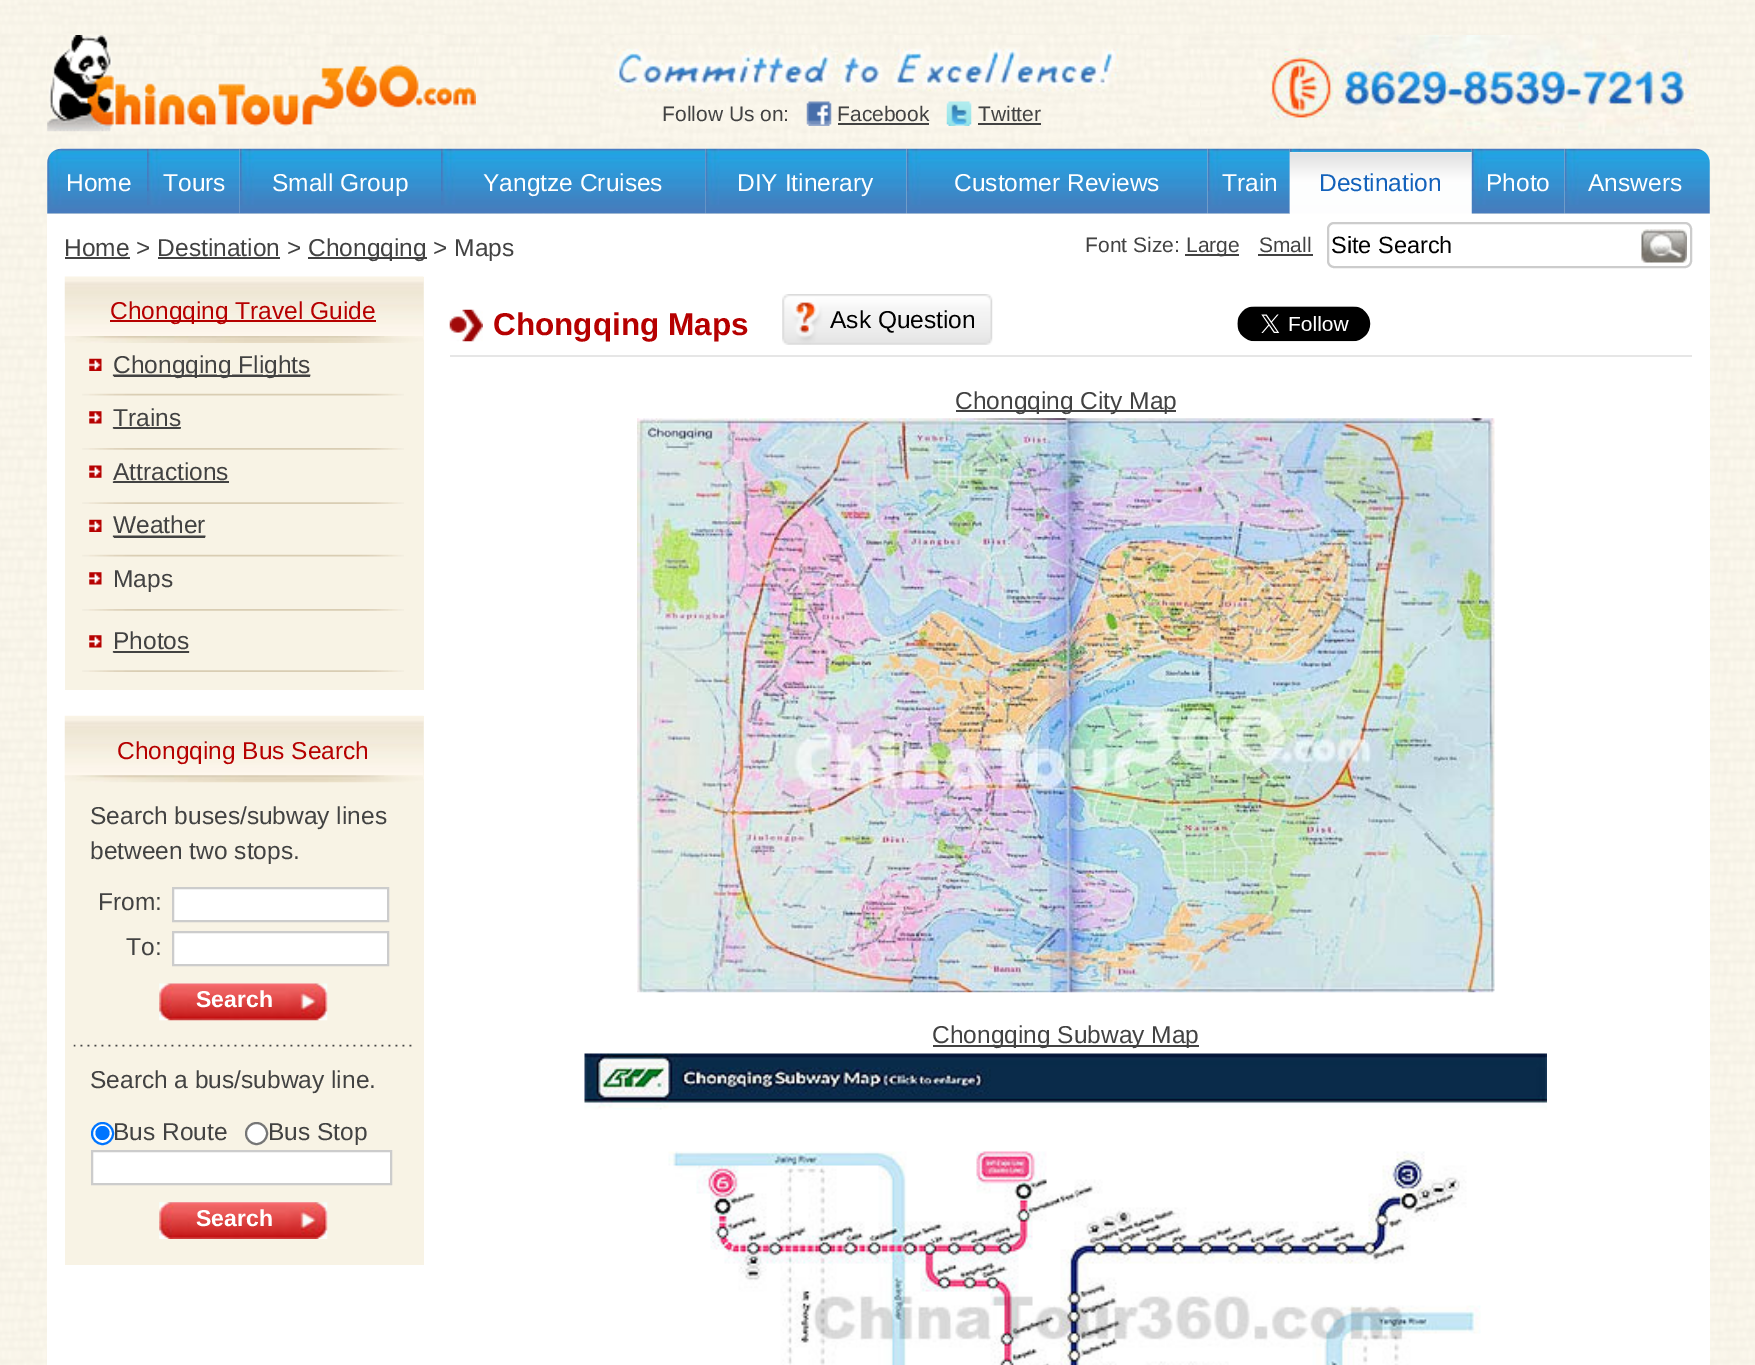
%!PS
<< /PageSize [1755 1365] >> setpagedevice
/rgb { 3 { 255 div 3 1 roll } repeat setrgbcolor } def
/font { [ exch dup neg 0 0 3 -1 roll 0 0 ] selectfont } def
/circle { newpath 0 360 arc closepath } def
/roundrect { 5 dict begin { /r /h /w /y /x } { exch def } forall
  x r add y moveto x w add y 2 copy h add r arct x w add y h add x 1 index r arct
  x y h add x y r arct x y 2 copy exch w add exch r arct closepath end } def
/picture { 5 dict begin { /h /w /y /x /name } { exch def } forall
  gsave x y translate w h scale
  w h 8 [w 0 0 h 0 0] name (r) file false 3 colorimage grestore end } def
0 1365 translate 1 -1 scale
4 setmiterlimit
255 255 255 rgb
0 0 1755 1365 rectfill
(img/1.rgb) 0 0 1755 1365 picture
(img/2.rgb) 47 35 429 97 picture
(img/3.rgb) 600 35 600 108 picture
(img/4.rgb) 1201 35 493 108 picture
(img/5.rgb) 806 101 26 25 picture
66 66 66 rgb
838 123 91 2 rectfill
(img/6.rgb) 946 101 26 25 picture
978 123 63 2 rectfill
(img/7.rgb) 47 148 100 66 picture
(img/8.rgb) 147 148 93 66 picture
(img/9.rgb) 239 148 202 66 picture
(img/10.rgb) 441 148 265 66 picture
(img/11.rgb) 705 148 202 66 picture
(img/12.rgb) 906 148 302 66 picture
(img/13.rgb) 1207 148 83 66 picture
(img/14.rgb) 1289 148 183 66 picture
255 255 255 rgb
1290 152 182 62 rectfill
(img/15.rgb) 1289 152 183 62 picture
(img/16.rgb) 1471 148 94 66 picture
(img/17.rgb) 1564 148 146 66 picture
[
  [47 214 1663 1151 255 255 255]
  [65 257 65 2 66 66 66]
  [308 257 119 2 66 66 66]
  [158 257 122 2 66 66 66]
  [1185 254 54 2 66 66 66]
  [1258 254 55 2 66 66 66]
] { aload pop rgb rectfill } forall
204 204 204 rgb
2 setlinewidth
1328 223 363 44 6 roundrect stroke
(img/18.rgb) 1641 229 46 34 picture
248 243 229 rgb
65 277 359 413 rectfill
(img/19.rgb) 64 276 360 64 picture
(img/20.rgb) 64 336 359 7 picture
182 0 0 rgb
110 320 266 2 rectfill
(img/21.rgb) 82 393 322 3 picture
(img/22.rgb) 89 358 222 19 picture
66 66 66 rgb
114 375 196 2 rectfill
(img/23.rgb) 82 448 322 2 picture
(img/24.rgb) 89 411 92 18 picture
114 428 66 1 rectfill
(img/25.rgb) 82 502 322 2 picture
(img/26.rgb) 89 465 25 18 picture
114 481 115 2 rectfill
(img/21.rgb) 82 554 322 3 picture
(img/27.rgb) 89 519 117 19 picture
114 537 91 1 rectfill
(img/23.rgb) 82 609 322 2 picture
(img/28.rgb) 89 572 13 13 picture
(img/25.rgb) 82 670 322 2 picture
(img/29.rgb) 89 635 101 18 picture
114 652 75 1 rectfill
248 243 229 rgb
65 716 359 549 rectfill
(img/30.rgb) 64 715 360 64 picture
(img/31.rgb) 64 775 359 8 picture
(img/32.rgb) 73 1044 339 3 picture
255 255 255 rgb
173 888 moveto 388 888 lineto 388 921 lineto 173 921 lineto closepath gsave fill grestore
204 204 204 rgb
stroke
255 255 255 rgb
173 932 moveto 388 932 lineto 388 965 lineto 173 965 lineto closepath gsave fill grestore
204 204 204 rgb
stroke
(img/33.rgb) 159 983 169 38 picture
255 255 255 rgb
102.5 1133.5 10.5 circle gsave fill grestore
0 117 255 rgb
stroke
102.5 1133 7 circle fill
255 255 255 rgb
256.5 1133.5 10.5 circle gsave fill grestore
118 118 118 rgb
stroke
255 255 255 rgb
92 1151 moveto 391 1151 lineto 391 1184 lineto 92 1184 lineto closepath gsave fill grestore
204 204 204 rgb
stroke
(img/34.rgb) 159 1202 169 37 picture
(img/35.rgb) 449 309 34 33 picture
(img/36.rgb) 782 294 211 51 picture
(img/37.rgb) 1237 306 134 36 picture
230 230 230 rgb
450 355 1242 2 rectfill
66 66 66 rgb
956 410 220 2 rectfill
(img/38.rgb) 637 418 858 575 picture
933 1045 266 2 rectfill
(img/39.rgb) 584 1053 963 312 picture
/LiberationSans-Regular 21 font
[
  [(Follow Us on:) 662 121]
  [(Facebook) 837 121]
  [(Twitter) 978 121]
] { aload pop moveto show } forall
/LiberationSans-Regular 24.5 font
255 255 255 rgb
[
  [(Home) 66 191]
  [(Tours) 163 191]
  [(Small Group) 272 191]
  [(Yangtze Cruises) 483 191]
  [(DIY Itinerary) 737 191]
  [(Customer Reviews) 954 191]
  [(Train) 1222 191]
] { aload pop moveto show } forall
19 98 187 rgb
1319 191 moveto (Destination) show
255 255 255 rgb
1486 191 moveto (Photo) show
1588 191 moveto (Answers) show
66 66 66 rgb
64 256 moveto (Home > Destination >) show
308 256 moveto (Chongqing > Maps) show
/LiberationSans-Regular 21 font
[
  [(Font Size:) 1085 252]
  [(Large) 1186 252]
  [(Small) 1259 252]
] { aload pop moveto show } forall
/LiberationSans-Regular 23.5 font
0 0 0 rgb
1331 253 moveto (Site Search) show
/LiberationSans-Regular 24.5 font
182 0 0 rgb
110 319 moveto (Chongqing Travel Guide) show
66 66 66 rgb
[
  [(Chongqing Flights) 113 373]
  [(Trains) 113 426]
  [(Attractions) 113 480]
  [(Weather) 113 533]
  [(Maps) 113 587]
  [(Photos) 113 649]
] { aload pop moveto show } forall
182 0 0 rgb
117 759 moveto (Chongqing Bus Search) show
66 66 66 rgb
[
  [(Search buses/subway lines) 90 824]
  [(between two stops.) 90 859]
  [(From:) 98 910]
  [(To:) 126 955]
] { aload pop moveto show } forall
/LiberationSans-Bold 23 font
255 255 255 rgb
196 1007 moveto (Search) show
/LiberationSans-Regular 24.5 font
66 66 66 rgb
[
  [(Search a bus/subway line.) 90 1088]
  [(Bus Route) 113 1140]
  [(Bus Stop) 268 1140]
] { aload pop moveto show } forall
/LiberationSans-Bold 23 font
255 255 255 rgb
196 1226 moveto (Search) show
/LiberationSans-Bold 31.5 font
182 0 0 rgb
493 335 moveto (Chongqing Maps) show
/LiberationSans-Regular 24.5 font
0 0 0 rgb
830 328 moveto (Ask Question) show
66 66 66 rgb
955 409 moveto (Chongqing City Map) show
932 1043 moveto (Chongqing Subway Map) show
showpage
